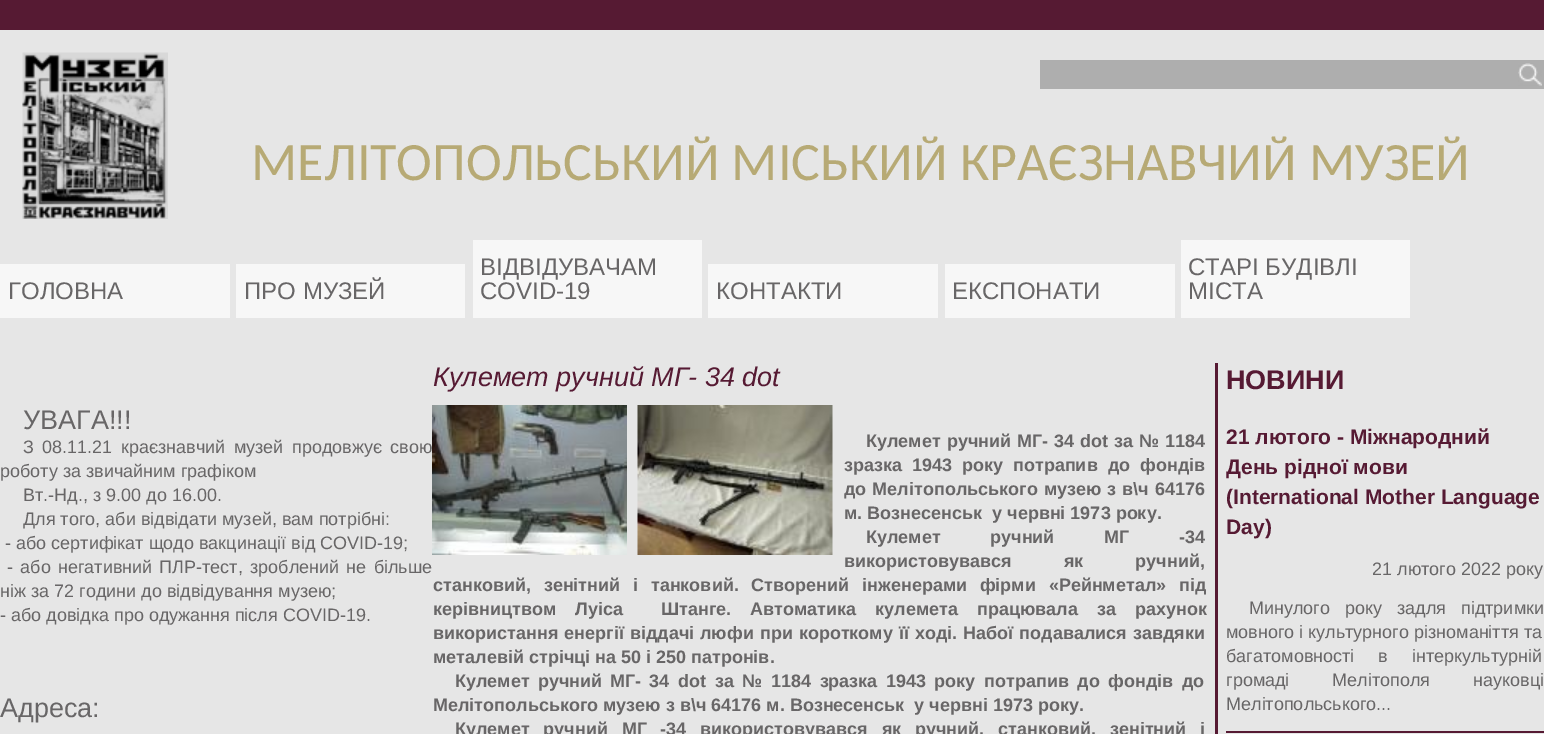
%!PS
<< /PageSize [1544 734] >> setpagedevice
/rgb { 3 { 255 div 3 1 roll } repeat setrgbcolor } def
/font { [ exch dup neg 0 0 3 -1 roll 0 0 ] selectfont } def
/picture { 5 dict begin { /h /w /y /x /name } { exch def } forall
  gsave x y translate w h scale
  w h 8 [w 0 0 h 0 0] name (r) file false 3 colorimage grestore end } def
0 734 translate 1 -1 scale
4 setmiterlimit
230 230 230 rgb
0 0 1544 734 rectfill
86 26 51 rgb
0 0 1544 30 rectfill
(img/1.rgb) 22 52 146 167 picture
174 174 174 rgb
1040 60 504 29 rectfill
(img/2.rgb) 1518 63 24 23 picture
[
  [0 264 230 54 247 247 247]
  [236 264 229 54 247 247 247]
  [473 240 229 78 247 247 247]
  [708 264 230 54 247 247 247]
  [945 264 230 54 247 247 247]
  [1181 240 229 78 247 247 247]
] { aload pop rgb rectfill } forall
(img/3.rgb) 432 405 195 150 picture
(img/4.rgb) 637 405 196 150 picture
86 26 51 rgb
1215 363 3 371 rectfill
1226 731 318 2 rectfill
/Carlito-Regular 54 font
183 170 117 rgb
251 180 moveto (МЕЛІТОПОЛЬСЬКИЙ МІСЬКИЙ КРАЄЗНАВЧИЙ МУЗЕЙ) show
/LiberationSans-Regular 24 font
104 102 103 rgb
[
  [(ГОЛОВНА) 8 299]
  [(ПРО МУЗЕЙ) 244 299]
  [(ВІДВІДУВАЧАМ) 480 275]
  [(COVID-19) 480 299]
  [(КОНТАКТИ) 716 299]
  [(ЕКСПОНАТИ) 952 299]
  [(СТАРІ БУДІВЛІ) 1188 275]
  [(МІСТА) 1188 299]
] { aload pop moveto show } forall
/LiberationSans-Regular 27 font
23 429 moveto (УВАГА!!!) show
/LiberationSans-Regular 18 font
23 453 moveto 3.5 0 32 (З 08.11.21 краєзнавчий музей продовжує свою) widthshow
[
  [(роботу за звичайним графіком) 0 477]
  [(Вт.-Нд., з 9.00 до 16.00.) 23 501]
  [(Для того, аби відвідати музей, вам потрібні:) 23 525]
  [(- або сертифікат щодо вакцинації від COVID-19;) 5 549]
] { aload pop moveto show } forall
7 573 moveto 2.25 0 32 (- або негативний ПЛР-тест, зроблений не більше) widthshow
0 597 moveto (ніж за 72 години до відвідування музею;) show
0 621 moveto (- або довідка про одужання після COVID-19.) show
/LiberationSans-Regular 27 font
0 717 moveto (Адреса:) show
/LiberationSans-Italic 27 font
86 26 51 rgb
433 386 moveto (Кулемет ручний МГ- 34 dot) show
/LiberationSans-Bold 18 font
104 102 103 rgb
866 447 moveto 1 0 32 (Кулемет ручний МГ- 34) widthshow
1080 447 moveto (dot) show
1114 447 moveto 1 0 32 (за № 1184) widthshow
844 471 moveto 5 0 32 (зразка 1943 року потрапив до фондів) widthshow
844 495 moveto 1 0 32 (до Мелітопольського музею з в\\ч 64176) widthshow
844 519 moveto (м. Вознесенськ  у червні 1973 року.) show
866 543 moveto 44.5 0 32 (Кулемет ручний МГ -34) widthshow
844 567 moveto 47 0 32 (використовувався як ручний,) widthshow
433 591 moveto 7.75 0 32 (станковий, зенітний і танковий. Створений інженерами фірми «Рейнметал» під) widthshow
433 615 moveto 14 0 32 (керівництвом Луіса  Штанге. Автоматика кулемета працювала за рахунок) widthshow
433 639 moveto 1 0 32 (використання енергії віддачі люфи при короткому її ході. Набої подавалися завдяки) widthshow
433 663 moveto (металевій стрічці на 50 і 250 патронів.) show
455 687 moveto 3 0 32 (Кулемет ручний МГ- 34) widthshow
678 687 moveto (dot) show
715 687 moveto 3.5 0 32 (за № 1184 зразка 1943 року потрапив до фондів до) widthshow
433 711 moveto (Мелітопольського музею з в\\ч 64176 м. Вознесенськ  у червні 1973 року.) show
455 735 moveto 8.75 0 32 (Кулемет ручний МГ -34 використовувався як ручний, станковий, зенітний і) widthshow
/LiberationSans-Bold 27 font
86 26 51 rgb
1226 389 moveto (НОВИНИ) show
/LiberationSans-Bold 21 font
[
  [(21 лютого - Міжнародний) 1226 444]
  [(День рідної мови) 1226 474]
  [(\(International Mother Language) 1226 504]
  [(Day\)) 1226 534]
] { aload pop moveto show } forall
/LiberationSans-Regular 18 font
104 102 103 rgb
1372 575 moveto (21 лютого 2022 року) show
1249 614 moveto 10 0 32 (Минулого року задля підтримки) widthshow
1226 638 moveto (мовного і культурного різноманіття та) show
1226 662 moveto 19 0 32 (багатомовності в інтеркультурній) widthshow
1226 686 moveto 38 0 32 (громаді Мелітополя науковці) widthshow
1226 710 moveto (Мелітопольського...) show
showpage
